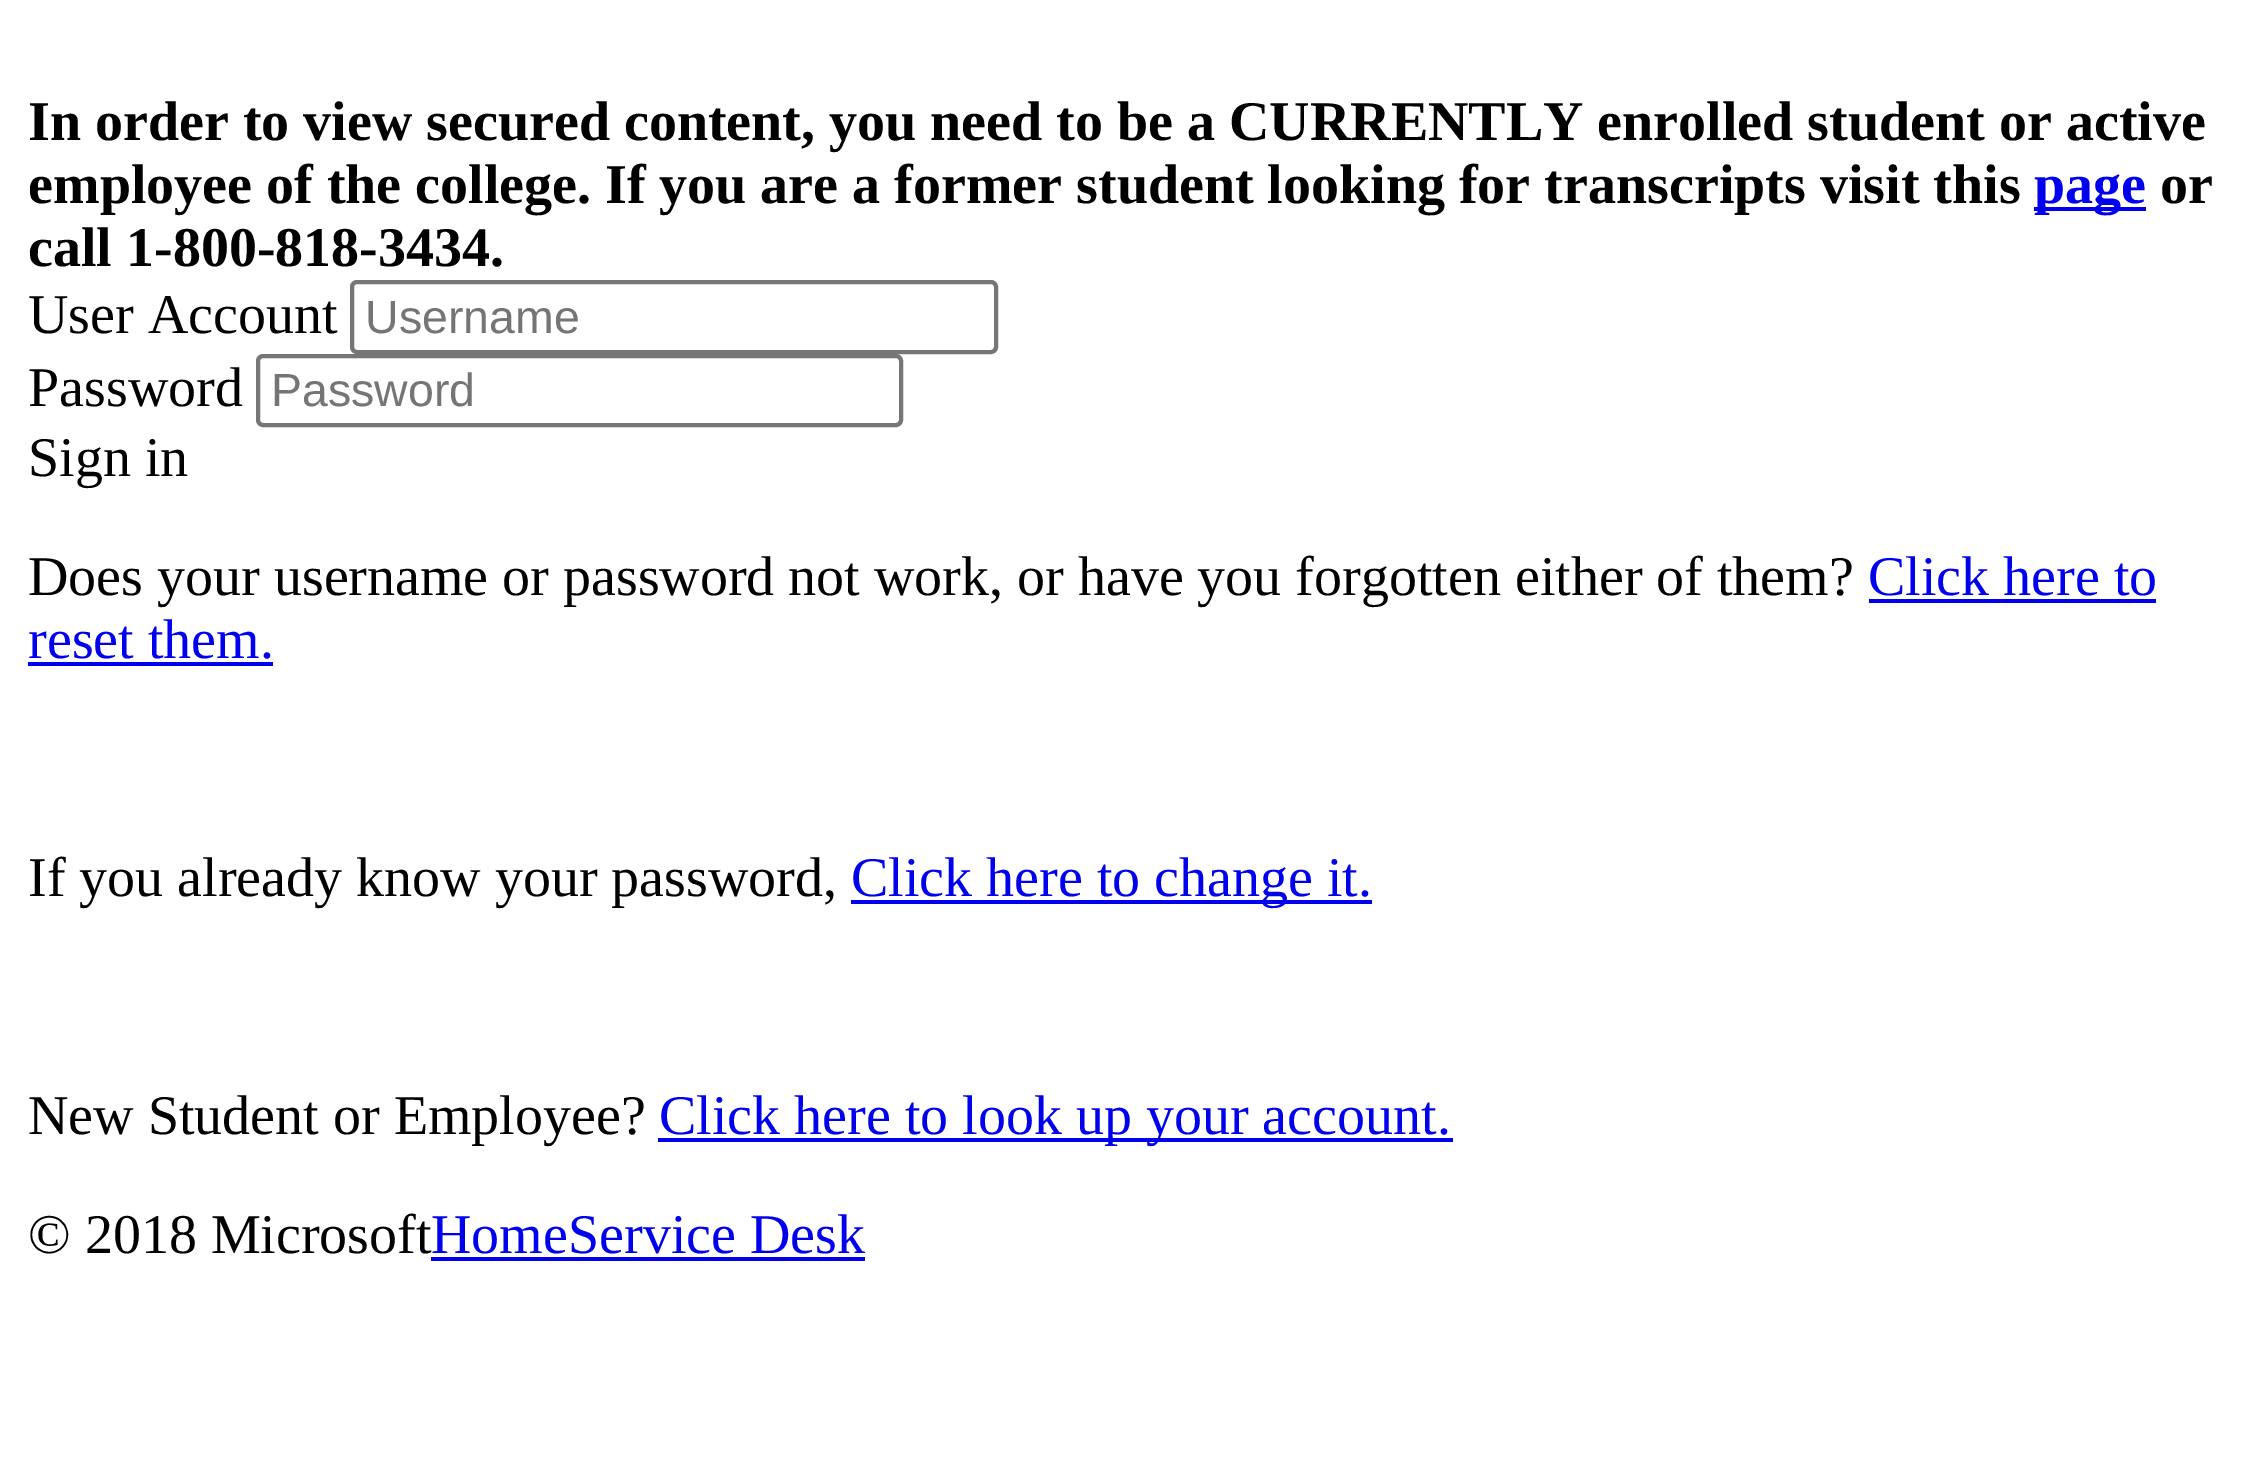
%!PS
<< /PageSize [2265 1458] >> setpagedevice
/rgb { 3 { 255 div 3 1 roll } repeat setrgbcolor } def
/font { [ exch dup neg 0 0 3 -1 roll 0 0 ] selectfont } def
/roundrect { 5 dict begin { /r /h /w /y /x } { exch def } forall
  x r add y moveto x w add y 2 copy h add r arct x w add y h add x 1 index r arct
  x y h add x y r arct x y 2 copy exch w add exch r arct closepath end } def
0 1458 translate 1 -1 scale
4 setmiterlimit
255 255 255 rgb
0 0 2265 1458 rectfill
0 0 238 rgb
2034 207 112 4 rectfill
118 118 118 rgb
4 setlinewidth
352 282 644 70 5 roundrect stroke
258 356 643 69 5 roundrect stroke
[
  [1869 599 287 4 0 0 238]
  [28 662 245 4 0 0 238]
  [851 900 521 4 0 0 238]
  [658 1138 795 4 0 0 238]
  [431 1257 434 4 0 0 238]
] { aload pop rgb rectfill } forall
/LiberationSerif-Bold 56 font
0 0 0 rgb
28 140 moveto (In order to view secured content, you need to be a CURRENTLY enrolled student or active) show
28 203 moveto (employee of the college. If you are a former student looking for transcripts visit this) show
0 0 238 rgb
2034 203 moveto (page) show
0 0 0 rgb
2160 203 moveto (or) show
28 266 moveto (call 1-800-818-3434.) show
/LiberationSerif-Regular 56 font
28 333 moveto (User Account) show
/LiberationSans-Regular 46.5 font
117 117 117 rgb
365 333 moveto (Username) show
/LiberationSerif-Regular 56 font
0 0 0 rgb
28 406 moveto (Password) show
/LiberationSans-Regular 46.5 font
117 117 117 rgb
271 406 moveto (Password) show
/LiberationSerif-Regular 56 font
0 0 0 rgb
28 476 moveto (Sign in) show
28 595 moveto (Does your username or password not work, or have you forgotten either of them?) show
0 0 238 rgb
1868 595 moveto (Click here to) show
28 658 moveto (reset them.) show
0 0 0 rgb
28 896 moveto (If you already know your password,) show
0 0 238 rgb
851 896 moveto (Click here to change it.) show
0 0 0 rgb
28 1134 moveto (New Student or Employee?) show
0 0 238 rgb
659 1134 moveto (Click here to look up your account.) show
0 0 0 rgb
28 1253 moveto (© 2018 Microsoft) show
0 0 238 rgb
431 1253 moveto (HomeService Desk) show
showpage
